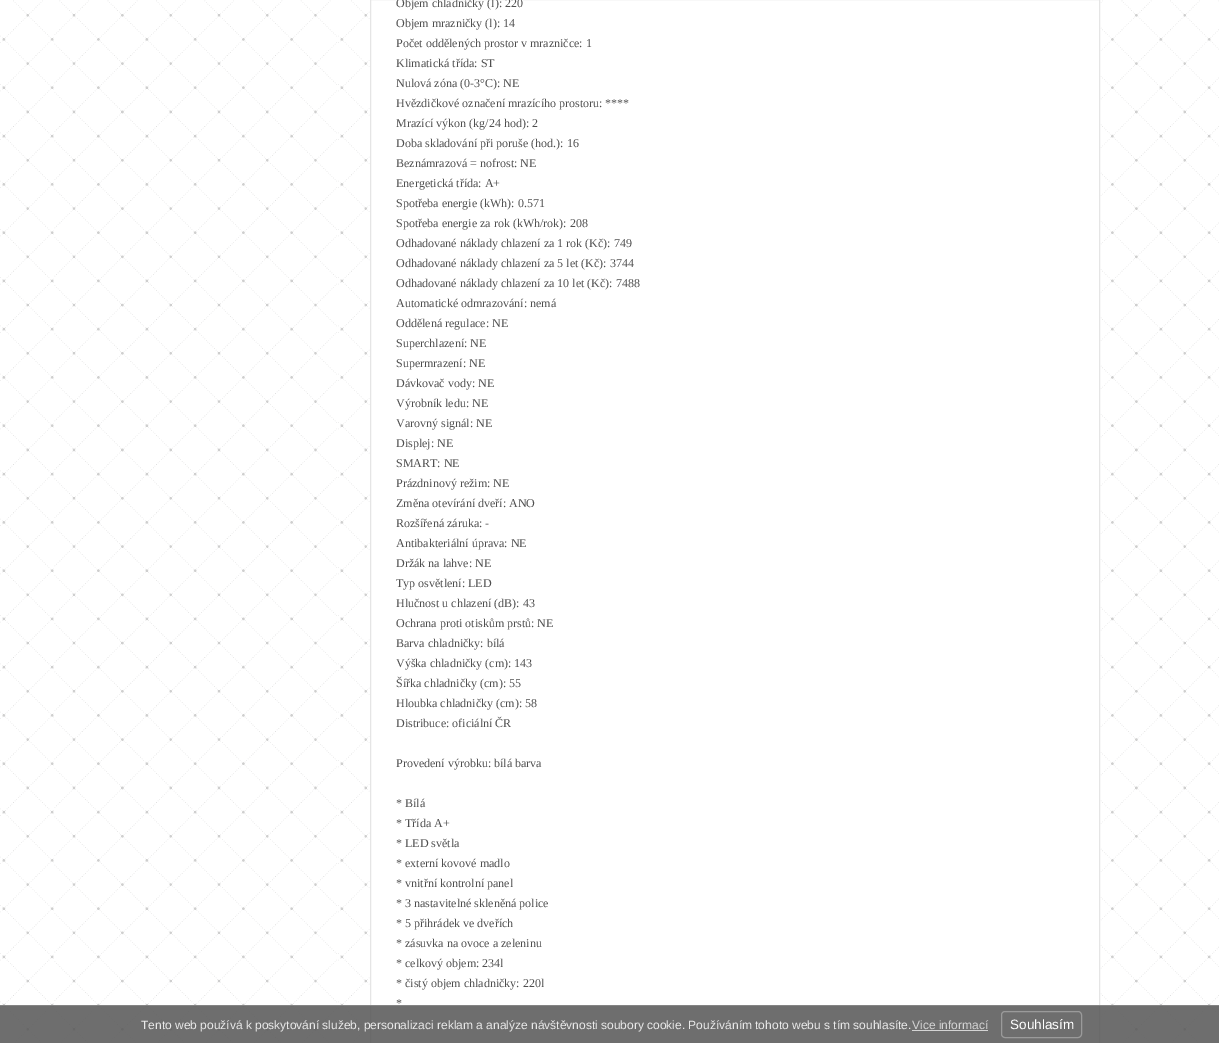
%!PS
<< /PageSize [1219 1043] /PageUsesTransparency true >> setpagedevice
/rgb { 3 { 255 div 3 1 roll } repeat setrgbcolor } def
/font { [ exch dup neg 0 0 3 -1 roll 0 0 ] selectfont } def
/alpha { dup .setfillconstantalpha .setstrokeconstantalpha } def
/roundrect { 5 dict begin { /r /h /w /y /x } { exch def } forall
  x r add y moveto x w add y 2 copy h add r arct x w add y h add x 1 index r arct
  x y h add x y r arct x y 2 copy exch w add exch r arct closepath end } def
/picture { 5 dict begin { /h /w /y /x /name } { exch def } forall
  gsave x y translate w h scale
  w h 8 [w 0 0 h 0 0] name (r) file false 3 colorimage grestore end } def
0 .pushpdf14devicefilter
0 1043 translate 1 -1 scale
4 setmiterlimit
255 255 255 rgb
0 0 1219 1043 rectfill
(img/1.rgb) 0 0 1219 1043 picture
370.5 -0.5 moveto 1099.5 -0.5 lineto 1099.5 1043.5 lineto 370.5 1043.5 lineto closepath gsave fill grestore
229 229 229 rgb
stroke
0.85 alpha
[
  [0 1005 1219 38 85 85 85]
  [0 1005 1219 1 136 136 136]
] { aload pop rgb rectfill } forall
1 alpha
[
  [912 1030 76 1 212 212 212]
] { aload pop rgb rectfill } forall
154 154 154 rgb
1001.5 1011.5 80 26 3.5 roundrect stroke
/LiberationSerif-Regular 12 font
79 79 79 rgb
[
  [(Objem chladničky \(l\): 220) 396 7]
  [(Objem mrazničky \(l\): 14) 396 27]
  [(Počet oddělených prostor v mrazničce: 1) 396 47]
  [(Klimatická třída: ST) 396 67]
  [(Nulová zóna \(0-3°C\): NE) 396 87]
  [(Hvězdičkové označení mrazícího prostoru: ****) 396 107]
  [(Mrazící výkon \(kg/24 hod\): 2) 396 127]
  [(Doba skladování při poruše \(hod.\): 16) 396 147]
  [(Beznámrazová = nofrost: NE) 396 167]
  [(Energetická třída: A+) 396 187]
  [(Spotřeba energie \(kWh\): 0.571) 396 207]
  [(Spotřeba energie za rok \(kWh/rok\): 208) 396 227]
  [(Odhadované náklady chlazení za 1 rok \(Kč\): 749) 396 247]
  [(Odhadované náklady chlazení za 5 let \(Kč\): 3744) 396 267]
  [(Odhadované náklady chlazení za 10 let \(Kč\): 7488) 396 287]
  [(Automatické odmrazování: nemá) 396 307]
  [(Oddělená regulace: NE) 396 327]
  [(Superchlazení: NE) 396 347]
  [(Supermrazení: NE) 396 367]
  [(Dávkovač vody: NE) 396 387]
  [(Výrobník ledu: NE) 396 407]
  [(Varovný signál: NE) 396 427]
  [(Displej: NE) 396 447]
  [(SMART: NE) 396 467]
  [(Prázdninový režim: NE) 396 487]
  [(Změna otevírání dveří: ANO) 396 507]
  [(Rozšířená záruka: -) 396 527]
  [(Antibakteriální úprava: NE) 396 547]
  [(Držák na lahve: NE) 396 567]
  [(Typ osvětlení: LED) 396 587]
  [(Hlučnost u chlazení \(dB\): 43) 396 607]
  [(Ochrana proti otiskům prstů: NE) 396 627]
  [(Barva chladničky: bílá) 396 647]
  [(Výška chladničky \(cm\): 143) 396 667]
  [(Šířka chladničky \(cm\): 55) 396 687]
  [(Hloubka chladničky \(cm\): 58) 396 707]
  [(Distribuce: oficiální ČR) 396 727]
  [(Provedení výrobku: bílá barva) 396 767]
  [(* Bílá) 396 807]
  [(* Třída A+) 396 827]
  [(* LED světla) 396 847]
  [(* externí kovové madlo) 396 867]
  [(* vnitřní kontrolní panel) 396 887]
  [(* 3 nastavitelné skleněná police) 396 907]
  [(* 5 přihrádek ve dveřích) 396 927]
  [(* zásuvka na ovoce a zeleninu) 396 947]
  [(* celkový objem: 234l) 396 967]
  [(* čistý objem chladničky: 220l) 396 987]
  [(*) 396 1007]
] { aload pop moveto show } forall
/LiberationSans-Regular 12 font
233 233 233 rgb
141 1029 moveto (Tento web používá k poskytování služeb, personalizaci reklam a analýze návštěvnosti soubory cookie. Používáním tohoto webu s tím souhlasíte.) show
212 212 212 rgb
912 1029 moveto (Vice informací) show
/LiberationSans-Regular 13.5 font
255 255 255 rgb
1010 1029 moveto (Souhlasím) show
.poppdf14devicefilter showpage
